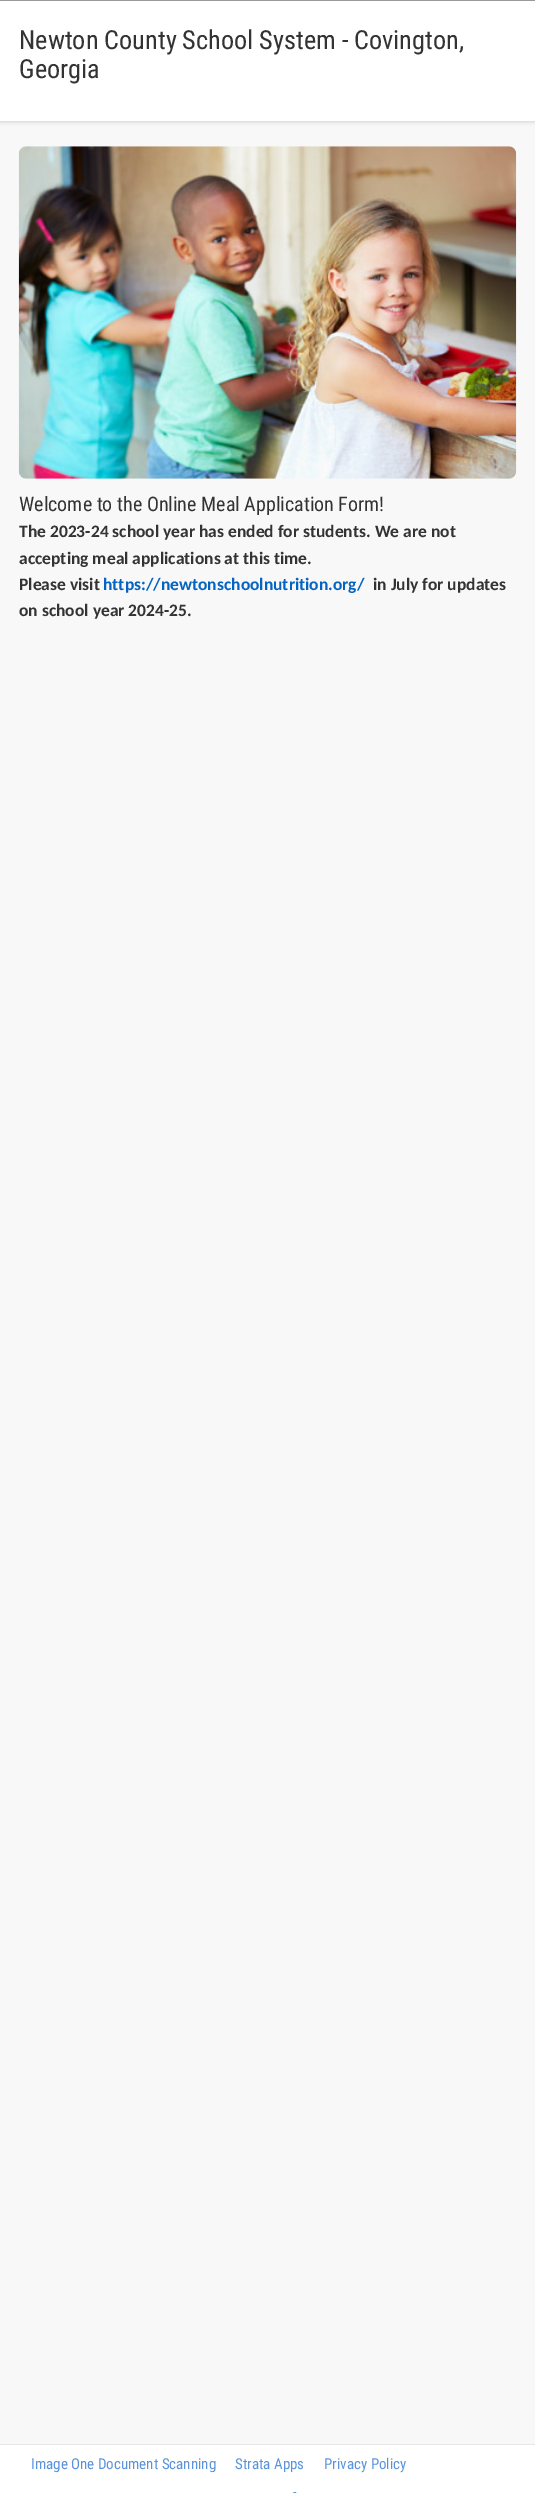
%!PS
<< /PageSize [535 2493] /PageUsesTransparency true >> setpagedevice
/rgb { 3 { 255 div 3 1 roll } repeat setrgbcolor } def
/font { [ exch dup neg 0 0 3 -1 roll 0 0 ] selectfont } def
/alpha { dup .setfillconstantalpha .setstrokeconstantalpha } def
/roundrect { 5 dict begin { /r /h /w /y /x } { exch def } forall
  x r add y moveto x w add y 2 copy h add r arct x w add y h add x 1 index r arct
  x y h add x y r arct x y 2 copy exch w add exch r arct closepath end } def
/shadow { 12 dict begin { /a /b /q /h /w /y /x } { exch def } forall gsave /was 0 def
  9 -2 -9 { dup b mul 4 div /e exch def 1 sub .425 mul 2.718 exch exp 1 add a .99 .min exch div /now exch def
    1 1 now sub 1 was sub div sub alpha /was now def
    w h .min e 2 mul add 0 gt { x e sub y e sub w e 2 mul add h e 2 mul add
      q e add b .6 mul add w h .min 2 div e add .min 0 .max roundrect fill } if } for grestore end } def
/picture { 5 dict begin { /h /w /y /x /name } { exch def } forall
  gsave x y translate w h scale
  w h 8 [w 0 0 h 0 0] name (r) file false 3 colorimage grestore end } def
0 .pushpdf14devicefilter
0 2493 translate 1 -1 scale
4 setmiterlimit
248 248 248 rgb
0 0 535 2493 rectfill
0 0 0 rgb
0 0 535 121 0 2.5 0.2 shadow
255 255 255 rgb
0 1 535 120 rectfill
153 153 153 rgb
0 0 535 1 rectfill
(img/1.rgb) 18 146 499 333 picture
255 255 255 rgb
0 2445 535 48 rectfill
231 231 231 rgb
0 2444 535 1 rectfill
/RobotoCondensed-Regular 26.25 font
51 51 51 rgb
19 49 moveto (Newton County School System - Covington,) show
19 78 moveto (Georgia) show
/RobotoCondensed-Regular 20 font
19 511 moveto (Welcome to the Online Meal Application Form!) show
/Carlito-Bold 17.5 font
[
  [(The 2023-24 school year has ended for students. We are not) 19 537]
  [(accepting meal applications at this time.) 19 564]
  [(Please visit) 19 590]
] { aload pop moveto show } forall
5 99 193 rgb
103 590 moveto (https://newtonschoolnutrition.org/) show
51 51 51 rgb
373 590 moveto (in July for updates) show
19 616 moveto (on school year 2024-25.) show
/RobotoCondensed-Regular 15 font
89 147 219 rgb
[
  [(Image One Document Scanning) 31 2469]
  [(Strata Apps) 235 2469]
  [(Privacy Policy) 324 2469]
  [(-) 293 2497]
] { aload pop moveto show } forall
.poppdf14devicefilter showpage
